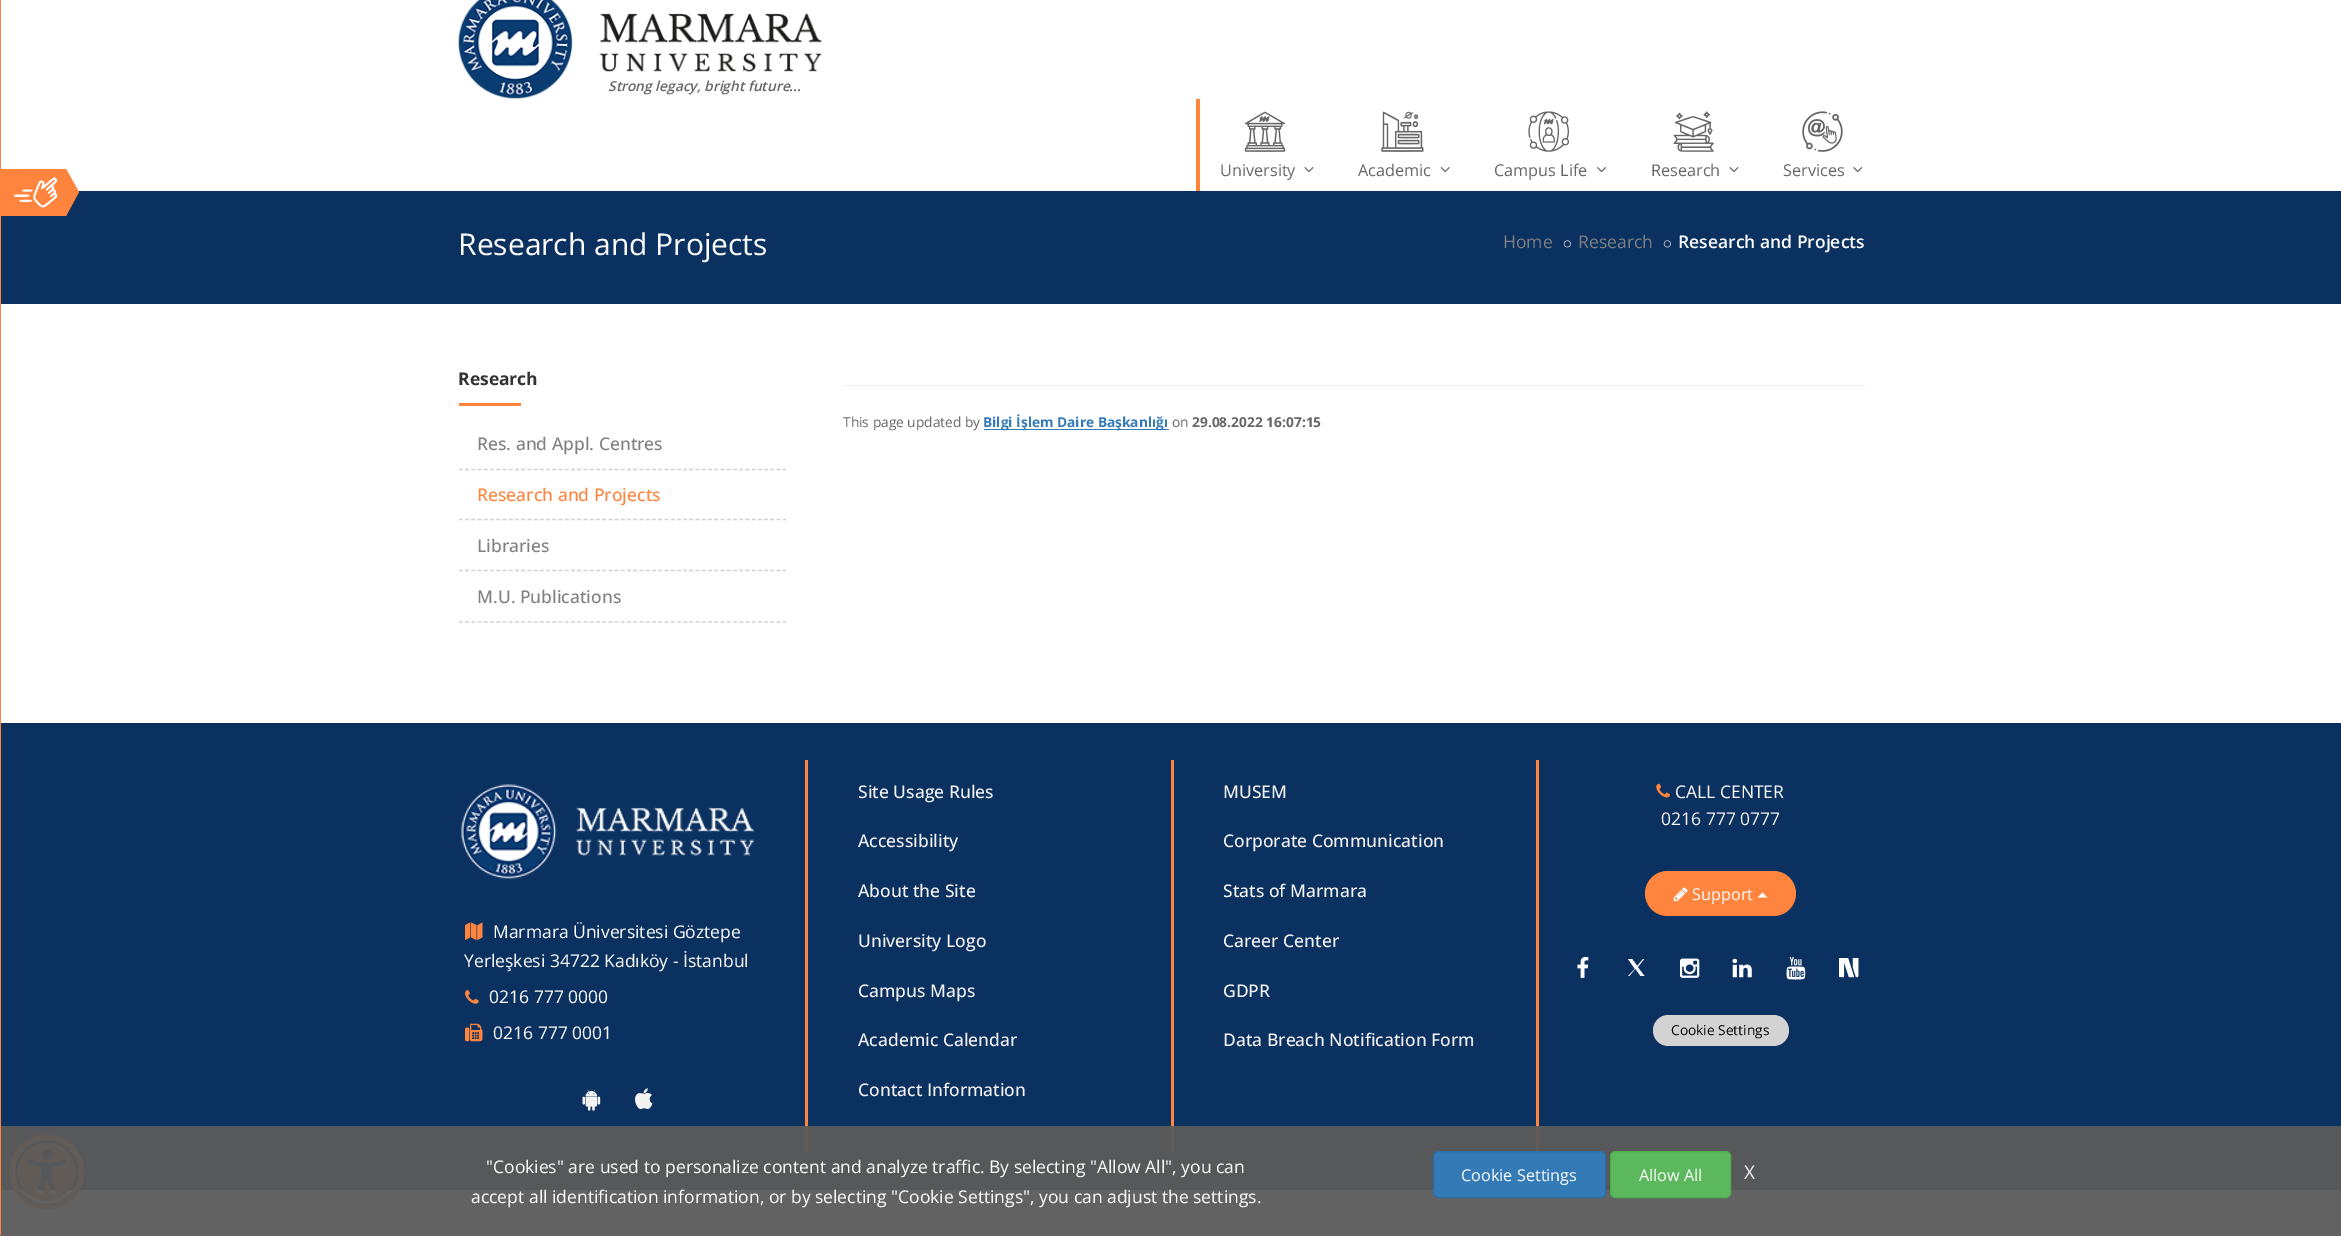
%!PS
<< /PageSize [2341 1236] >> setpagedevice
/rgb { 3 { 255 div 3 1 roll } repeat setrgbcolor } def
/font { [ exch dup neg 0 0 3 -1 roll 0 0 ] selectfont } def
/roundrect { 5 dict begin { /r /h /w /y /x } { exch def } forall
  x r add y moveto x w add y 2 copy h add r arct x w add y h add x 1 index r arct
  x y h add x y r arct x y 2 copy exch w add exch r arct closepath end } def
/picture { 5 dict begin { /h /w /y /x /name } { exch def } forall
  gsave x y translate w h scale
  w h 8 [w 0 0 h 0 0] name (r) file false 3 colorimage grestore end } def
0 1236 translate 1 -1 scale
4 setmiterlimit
255 255 255 rgb
0 0 2341 1236 rectfill
[
  [0 1190 2341 46 98 98 98]
  [0 0 1 1235 255 133 63]
  [1 191 2340 113 11 49 96]
  [1 169 65 47 255 133 63]
] { aload pop rgb rectfill } forall
(img/1.rgb) 14 177 44 31 picture
66 216 moveto 66 169 lineto 79 192 lineto closepath fill
(img/2.rgb) 458 0 364 99 picture
1196 99 4 92 rectfill
(img/3.rgb) 1244 111 42 41 picture
(img/4.rgb) 1304 167 10 6 picture
(img/5.rgb) 1381 111 43 41 picture
(img/6.rgb) 1440 167 10 6 picture
(img/7.rgb) 1528 111 41 41 picture
(img/8.rgb) 1597 167 9 6 picture
(img/9.rgb) 1673 111 41 41 picture
(img/4.rgb) 1729 167 10 6 picture
(img/10.rgb) 1802 111 41 41 picture
(img/11.rgb) 1853 167 10 6 picture
(img/12.rgb) 1563 240 8 8 picture
(img/12.rgb) 1663 240 8 8 picture
459 403 62 3 rectfill
211 211 211 rgb
1.2 setlinewidth
[3.75 2.48] 0 setdash
459 469.5 moveto 786 469.5 lineto stroke
459 519.5 moveto 786 519.5 lineto stroke
459 570.5 moveto 786 570.5 lineto stroke
459 622 moveto 786 622 lineto stroke
[
  [843 385 1022 1 238 238 238]
  [984 429 185 1 51 122 183]
  [1 723 2340 403 11 49 96]
  [1 1126 2340 64 86 88 90]
] { aload pop rgb rectfill } forall
(img/13.rgb) 461 784 293 95 picture
(img/14.rgb) 465 922 18 18 picture
(img/15.rgb) 465 990 14 14 picture
(img/16.rgb) 465 1023 18 19 picture
(img/17.rgb) 582 1089 19 22 picture
(img/18.rgb) 635 1088 18 22 picture
[
  [805 760 3 366 255 133 63]
  [805 1126 3 27 98 92 89]
  [1171 760 3 366 255 133 63]
  [1171 1126 3 27 98 92 89]
  [1536 760 3 366 255 133 63]
  [1536 1126 3 27 98 92 89]
] { aload pop rgb rectfill } forall
(img/19.rgb) 1656 783 14 15 picture
255 133 63 rgb
1645 871 151 45 22.5 roundrect fill
(img/20.rgb) 1673 887 15 15 picture
255 255 255 rgb
1767.5 897.5 moveto 1757.5 897.5 lineto 1762.5 892.5 lineto closepath fill
(img/21.rgb) 1577 957 12 21 picture
(img/22.rgb) 1628 959 17 17 picture
(img/23.rgb) 1680 958 20 20 picture
(img/24.rgb) 1732 958 20 20 picture
(img/25.rgb) 1786 956 20 24 picture
(img/26.rgb) 1839 958 20 20 picture
211 211 211 rgb
1653 1015 136 31 15.5 roundrect fill
(img/27.rgb) 9 1134 76 76 picture
51 122 183 rgb
1433.5 1151.5 172 46 4.5 roundrect gsave fill grestore
46 109 164 rgb
1 setlinewidth
[] 0 setdash
stroke
92 184 92 rgb
1610.5 1151.5 120 46 4.5 roundrect gsave fill grestore
76 174 76 rgb
stroke
/OpenSans-SemiBoldItalic 13.75 font
102 102 102 rgb
608 91 moveto (Strong legacy, bright future...) show
/OpenSans-Regular 16.25 font
[
  [(University) 1220 176]
  [(Academic) 1358 176]
  [(Campus Life) 1494 176]
  [(Research) 1651 176]
  [(Services) 1783 176]
] { aload pop moveto show } forall
/OpenSans-Regular 30 font
255 255 255 rgb
458 255 moveto (Research and Projects) show
/OpenSans-Regular 17.5 font
128 128 128 rgb
1503 248 moveto (Home) show
1578 248 moveto (Research) show
/OpenSans-SemiBold 17.5 font
255 255 255 rgb
1678 248 moveto (Research and Projects) show
/OpenSans-Bold 17.5 font
51 51 51 rgb
458 385 moveto (Research) show
/OpenSans-Medium 17.5 font
128 128 128 rgb
477 450 moveto (Res. and Appl. Centres) show
255 133 63 rgb
477 501 moveto (Research and Projects) show
128 128 128 rgb
477 552 moveto (Libraries) show
477 603 moveto (M.U. Publications) show
/OpenSans-Regular 13.75 font
102 102 102 rgb
843 427 moveto (This page updated by) show
/OpenSans-Bold 13.75 font
51 122 183 rgb
983 427 moveto (Bilgi İşlem Daire Başkanlığı) show
/OpenSans-Regular 13.75 font
102 102 102 rgb
1172 427 moveto (on) show
/OpenSans-Bold 13.75 font
1192 427 moveto (29.08.2022 16:07:15) show
/OpenSans-Regular 17.5 font
255 255 255 rgb
[
  [(Marmara Üniversitesi Göztepe) 493 938]
  [(Yerleşkesi 34722 Kadıköy - İstanbul) 464 967]
  [(0216 777 0000) 489 1003]
  [(0216 777 0001) 493 1039]
] { aload pop moveto show } forall
/OpenSans-Medium 17.5 font
243 243 243 rgb
[
  [(Site Usage Rules) 858 798]
  [(Accessibility) 858 847]
  [(About the Site) 858 897]
  [(University Logo) 858 947]
  [(Campus Maps) 858 997]
  [(Academic Calendar) 858 1046]
  [(Contact Information) 858 1096]
  [(MUSEM) 1223 798]
  [(Corporate Communication) 1223 847]
  [(Stats of Marmara) 1223 897]
  [(Career Center) 1223 947]
  [(GDPR) 1223 997]
  [(Data Breach Notification Form) 1223 1046]
] { aload pop moveto show } forall
/OpenSans-Regular 17.5 font
255 255 255 rgb
1675 798 moveto (CALL CENTER) show
243 243 243 rgb
1661 825 moveto (0216 777 0777) show
/OpenSans-Regular 16.25 font
255 255 255 rgb
1692 900 moveto (Support) show
/OpenSans-Regular 13.75 font
0 0 0 rgb
1671 1035 moveto (Cookie Settings) show
/OpenSans-Regular 17.5 font
255 255 255 rgb
486 1173 moveto ("Cookies" are used to personalize content and analyze traffic. By selecting "Allow All", you can) show
471 1203 moveto (accept all identification information, or by selecting "Cookie Settings", you can adjust the settings.) show
/OpenSans-Regular 16.25 font
1461 1181 moveto (Cookie Settings) show
1639 1181 moveto (Allow All) show
/OpenSans-Regular 19 font
243 243 243 rgb
1744 1179 moveto (X) show
showpage
